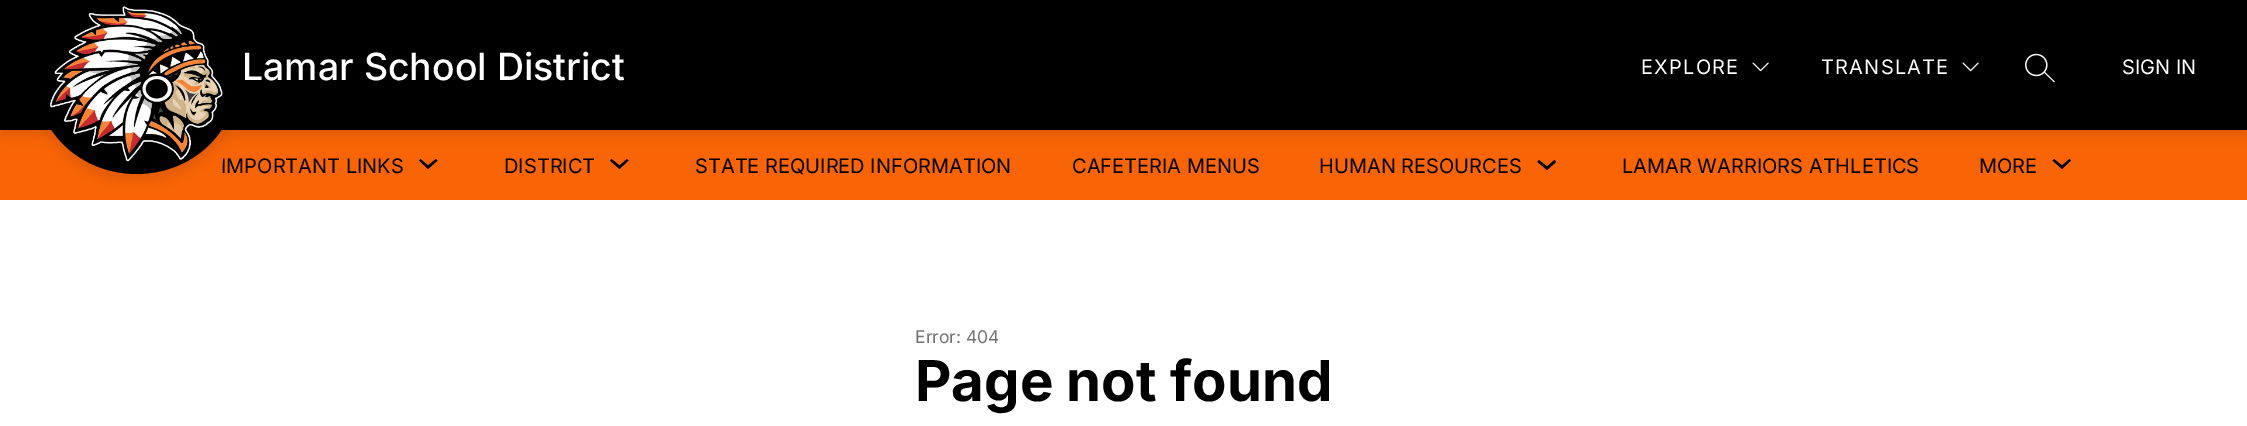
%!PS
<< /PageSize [2247 426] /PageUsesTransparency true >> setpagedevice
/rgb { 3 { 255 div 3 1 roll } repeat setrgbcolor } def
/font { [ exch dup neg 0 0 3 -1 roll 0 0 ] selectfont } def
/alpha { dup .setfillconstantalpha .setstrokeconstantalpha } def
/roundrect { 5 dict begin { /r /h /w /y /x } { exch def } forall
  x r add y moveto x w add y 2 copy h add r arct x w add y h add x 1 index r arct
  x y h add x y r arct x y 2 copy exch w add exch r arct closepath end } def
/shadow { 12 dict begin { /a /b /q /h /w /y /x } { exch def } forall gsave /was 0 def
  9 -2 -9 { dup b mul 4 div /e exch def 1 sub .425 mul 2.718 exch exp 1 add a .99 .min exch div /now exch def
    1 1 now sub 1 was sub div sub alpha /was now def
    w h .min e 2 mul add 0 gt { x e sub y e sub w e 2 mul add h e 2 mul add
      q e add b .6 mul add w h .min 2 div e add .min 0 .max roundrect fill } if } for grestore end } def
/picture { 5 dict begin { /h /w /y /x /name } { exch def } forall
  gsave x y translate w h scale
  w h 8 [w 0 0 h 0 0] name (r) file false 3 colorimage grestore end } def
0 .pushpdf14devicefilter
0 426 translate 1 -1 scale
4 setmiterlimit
255 255 255 rgb
0 0 2247 426 rectfill
249 100 6 rgb
0 130 2247 70 rectfill
0 0 0 rgb
0 5 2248 130 0 6 0.1 shadow
0 0 2247 130 rectfill
38 -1 197 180 90 6 0.1 shadow
136.5 -6 moveto 191 -6 235.5 34.5 235.5 84 curveto 235.5 133.5 191 174 136.5 174 curveto 82 174 37.5 133.5 37.5 84 curveto 37.5 34.5 82 -6 136.5 -6 curveto closepath fill
(img/2.rgb) 1752 62 17 10 picture
(img/2.rgb) 1962 62 17 10 picture
(img/3.rgb) 2025 53 30 30 picture
436 159 moveto 428 165.5 lineto 420.5 159 lineto 419 160.5 lineto 428 169 lineto 437.5 160.5 lineto closepath eofill
627 159 moveto 619.5 165.5 lineto 611.5 159 lineto 610 160.5 lineto 619.5 169 lineto 628.5 160.5 lineto closepath eofill
1554.5 160 moveto 1547 166.5 lineto 1539 160 lineto 1537.5 162 lineto 1547 170 lineto 1556 162 lineto closepath eofill
2069.5 159 moveto 2062 165.5 lineto 2054 159 lineto 2052.5 160.5 lineto 2062 169 lineto 2071 160.5 lineto closepath eofill
/Inter-Medium 37.5 font
255 255 255 rgb
242 80 moveto (Lamar School District) show
/Inter-Regular 20 font
1641 74 moveto 1.25 0 (EXPLORE) ashow
1821 74 moveto 1.25 0 (TRANSLATE) ashow
2122 74 moveto (SIGN IN) show
0 0 0 rgb
221 173 moveto (IMPORTANT LINKS) show
(img/1.rgb) 50 6 173 156 picture
[
  [(DISTRICT) 504 173]
  [(STATE REQUIRED INFORMATION) 695 173]
  [(CAFETERIA MENUS) 1072 173]
  [(HUMAN RESOURCES) 1319 173]
  [(LAMAR WARRIORS ATHLETICS) 1622 173]
  [(MORE) 1979 173]
] { aload pop moveto show } forall
/Inter-Regular 17.5 font
116 116 116 rgb
915 343 moveto (Error: 404) show
/Inter-Bold 56.25 font
0 0 0 rgb
915 401 moveto (Page not found) show
.poppdf14devicefilter showpage
